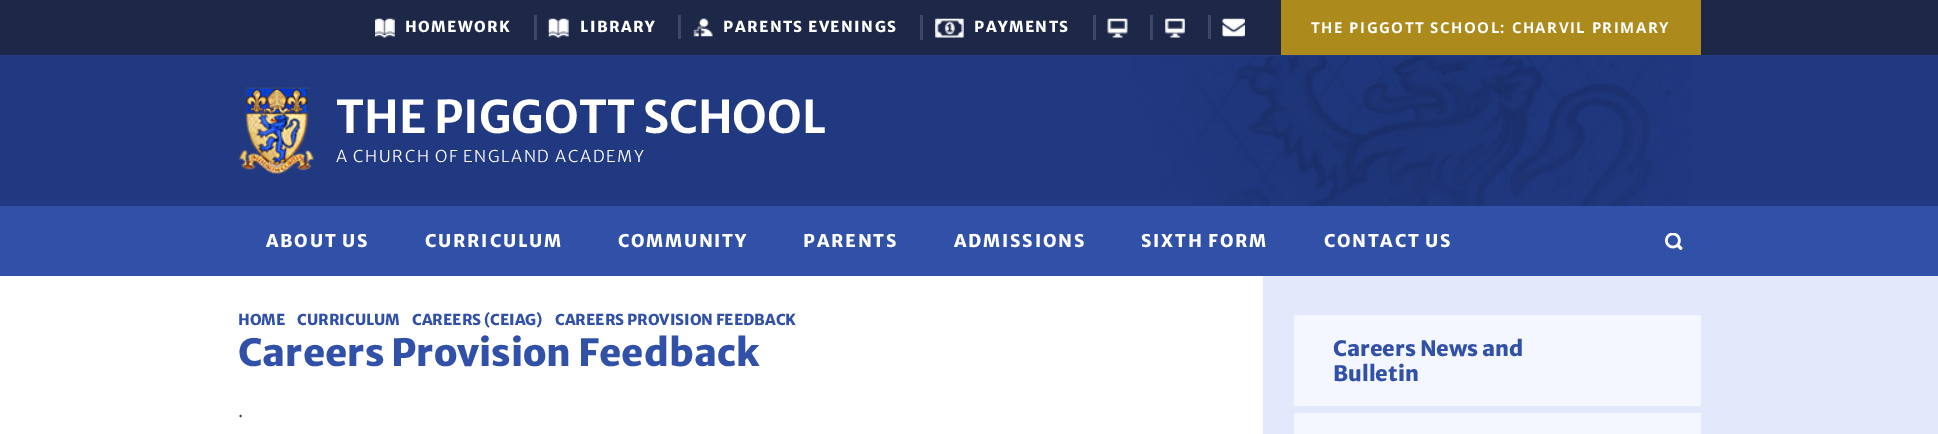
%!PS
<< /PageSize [1938 434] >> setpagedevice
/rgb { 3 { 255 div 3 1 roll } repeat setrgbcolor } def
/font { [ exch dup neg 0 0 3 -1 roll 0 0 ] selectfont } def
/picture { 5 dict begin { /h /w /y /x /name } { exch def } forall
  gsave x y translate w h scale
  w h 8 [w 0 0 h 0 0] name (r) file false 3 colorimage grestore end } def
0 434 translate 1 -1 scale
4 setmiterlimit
32 57 129 rgb
0 0 1938 434 rectfill
29 40 73 rgb
0 0 1938 55 rectfill
(img/1.rgb) 375 18 20 20 picture
62 71 100 rgb
534 15 3 25 rectfill
(img/2.rgb) 548 18 21 20 picture
678 15 3 24 rectfill
(img/3.rgb) 693 18 20 19 picture
920 15 3 25 rectfill
(img/4.rgb) 935 18 29 20 picture
1093 15 3 25 rectfill
(img/5.rgb) 1107 18 21 20 picture
1150 15 3 25 rectfill
(img/6.rgb) 1165 18 20 20 picture
1208 15 3 24 rectfill
(img/7.rgb) 1222 18 23 19 picture
172 138 28 rgb
1281 0 420 55 rectfill
(img/8.rgb) 1131 56 571 150 picture
(img/9.rgb) 238 87 76 87 picture
49 80 168 rgb
0 206 1938 70 rectfill
(img/10.rgb) 1665 233 18 17 picture
[
  [0 276 1263 158 255 255 255]
  [1263 276 675 158 227 233 250]
  [1294 315 407 91 244 247 255]
  [1294 413 407 21 244 247 255]
] { aload pop rgb rectfill } forall
/MerriweatherSans-ExtraBold 15 font
255 255 255 rgb
405 32 moveto 1.45 0 (HOMEWORK) ashow
580 32 moveto 1.45 0 (LIBRARY) ashow
723 32 moveto 1.45 0 (PARENTS EVENINGS) ashow
974 32 moveto 1.45 0 (PAYMENTS) ashow
/OpenSans-Bold 15 font
1311 33 moveto 1.45 0 (THE PIGGOTT SCHOOL: CHARVIL PRIMARY) ashow
/MerriweatherSans-Bold 45 font
336 133 moveto (THE PIGGOTT SCHOOL) show
/MerriweatherSans-Light 16.25 font
336 162 moveto 1.6 0 (A CHURCH OF ENGLAND ACADEMY) ashow
/MerriweatherSans-ExtraBold 17.5 font
266 247 moveto 1.75 0 (ABOUT US) ashow
425 247 moveto 1.75 0 (CURRICULUM) ashow
618 247 moveto 1.75 0 (COMMUNITY) ashow
803 247 moveto 1.75 0 (PARENTS) ashow
954 247 moveto 1.75 0 (ADMISSIONS) ashow
1141 247 moveto 1.75 0 (SIXTH FORM) ashow
1324 247 moveto 1.75 0 (CONTACT US) ashow
/MerriweatherSans-ExtraBold 15 font
49 80 168 rgb
[
  [(HOME) 238 325]
  [(CURRICULUM) 297 325]
  [(CAREERS \(CEIAG\)) 412 325]
  [(CAREERS PROVISION FEEDBACK) 555 325]
] { aload pop moveto show } forall
/MerriweatherSans-ExtraBold 37.5 font
238 366 moveto (Careers Provision Feedback) show
/OpenSans-Regular 20 font
68 68 68 rgb
238 417 moveto (.) show
/MerriweatherSans-ExtraBold 21.25 font
49 80 168 rgb
1333 356 moveto (Careers News and) show
1333 381 moveto (Bulletin) show
showpage
